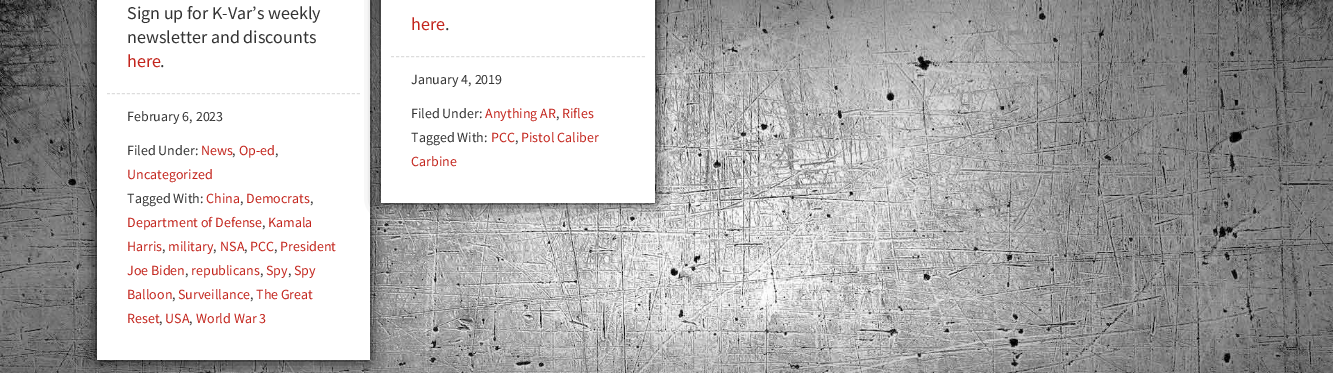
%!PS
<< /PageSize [1333 373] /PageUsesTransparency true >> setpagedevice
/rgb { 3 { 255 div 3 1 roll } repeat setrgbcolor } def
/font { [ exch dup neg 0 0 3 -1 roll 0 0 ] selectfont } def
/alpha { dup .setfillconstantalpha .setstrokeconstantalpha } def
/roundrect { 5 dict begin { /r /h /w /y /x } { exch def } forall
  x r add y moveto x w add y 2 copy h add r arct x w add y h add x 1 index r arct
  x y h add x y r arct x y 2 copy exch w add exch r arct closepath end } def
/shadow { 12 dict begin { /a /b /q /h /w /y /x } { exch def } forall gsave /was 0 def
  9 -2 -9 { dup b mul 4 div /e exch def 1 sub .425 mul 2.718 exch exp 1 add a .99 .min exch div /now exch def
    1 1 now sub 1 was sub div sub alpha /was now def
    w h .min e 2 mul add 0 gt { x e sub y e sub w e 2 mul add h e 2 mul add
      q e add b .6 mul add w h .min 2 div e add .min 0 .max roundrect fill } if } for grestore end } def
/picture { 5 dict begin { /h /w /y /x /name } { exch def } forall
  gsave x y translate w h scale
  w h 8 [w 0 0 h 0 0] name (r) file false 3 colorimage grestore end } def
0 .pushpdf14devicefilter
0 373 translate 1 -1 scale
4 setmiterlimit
255 255 255 rgb
0 0 1333 373 rectfill
(img/1.rgb) 0 0 1333 373 picture
0 0 0 rgb
97 -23 273 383 0 7.5 1 shadow
255 255 255 rgb
97 0 273 360 rectfill
221 221 221 rgb
[3 2] 0 setdash
107 93.5 moveto 360 93.5 lineto stroke
0 0 0 rgb
381 -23 274 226 0 7.5 1 shadow
255 255 255 rgb
381 0 274 203 rectfill
221 221 221 rgb
[3 2.02] 0 setdash
391 56.5 moveto 645 56.5 lineto stroke
/SourceSansPro-Regular 18 font
51 51 51 rgb
127 19 moveto (Sign up for K-Var’s weekly) show
127 43 moveto (newsletter and discounts) show
195 37 29 rgb
127 67 moveto (here) show
51 51 51 rgb
160 67 moveto (.) show
/SourceSansPro-Regular 14 font
127 121 moveto (February 6, 2023) show
127 155 moveto (Filed Under:) show
195 37 29 rgb
201 155 moveto (News) show
51 51 51 rgb
232 155 moveto (,) show
195 37 29 rgb
239 155 moveto (Op-ed) show
51 51 51 rgb
275 155 moveto (,) show
195 37 29 rgb
127 179 moveto (Uncategorized) show
51 51 51 rgb
127 203 moveto (Tagged With:) show
195 37 29 rgb
206 203 moveto (China) show
51 51 51 rgb
240 203 moveto (,) show
195 37 29 rgb
246 203 moveto (Democrats) show
51 51 51 rgb
310 203 moveto (,) show
195 37 29 rgb
127 227 moveto (Department of Defense) show
51 51 51 rgb
262 227 moveto (,) show
195 37 29 rgb
268 227 moveto (Kamala) show
127 251 moveto (Harris) show
51 51 51 rgb
162 251 moveto (,) show
195 37 29 rgb
168 251 moveto (military) show
51 51 51 rgb
213 251 moveto (,) show
195 37 29 rgb
220 251 moveto (NSA) show
51 51 51 rgb
244 251 moveto (,) show
195 37 29 rgb
250 251 moveto (PCC) show
51 51 51 rgb
274 251 moveto (,) show
195 37 29 rgb
280 251 moveto (President) show
127 275 moveto (Joe Biden) show
51 51 51 rgb
185 275 moveto (,) show
195 37 29 rgb
191 275 moveto (republicans) show
51 51 51 rgb
260 275 moveto (,) show
195 37 29 rgb
266 275 moveto (Spy) show
51 51 51 rgb
288 275 moveto (,) show
195 37 29 rgb
294 275 moveto (Spy) show
127 299 moveto (Balloon) show
51 51 51 rgb
172 299 moveto (,) show
195 37 29 rgb
178 299 moveto (Surveillance) show
51 51 51 rgb
250 299 moveto (,) show
195 37 29 rgb
256 299 moveto (The Great) show
127 323 moveto (Reset) show
51 51 51 rgb
159 323 moveto (,) show
195 37 29 rgb
165 323 moveto (USA) show
51 51 51 rgb
189 323 moveto (,) show
195 37 29 rgb
196 323 moveto (World War 3) show
/SourceSansPro-Regular 18 font
411 30 moveto (here) show
51 51 51 rgb
445 30 moveto (.) show
/SourceSansPro-Regular 14 font
411 84 moveto (January 4, 2019) show
411 118 moveto (Filed Under:) show
195 37 29 rgb
485 118 moveto (Anything AR) show
51 51 51 rgb
556 118 moveto (,) show
195 37 29 rgb
562 118 moveto (Rifles) show
51 51 51 rgb
411 142 moveto (Tagged With:) show
195 37 29 rgb
491 142 moveto (PCC) show
51 51 51 rgb
515 142 moveto (,) show
195 37 29 rgb
521 142 moveto (Pistol Caliber) show
411 166 moveto (Carbine) show
.poppdf14devicefilter showpage
